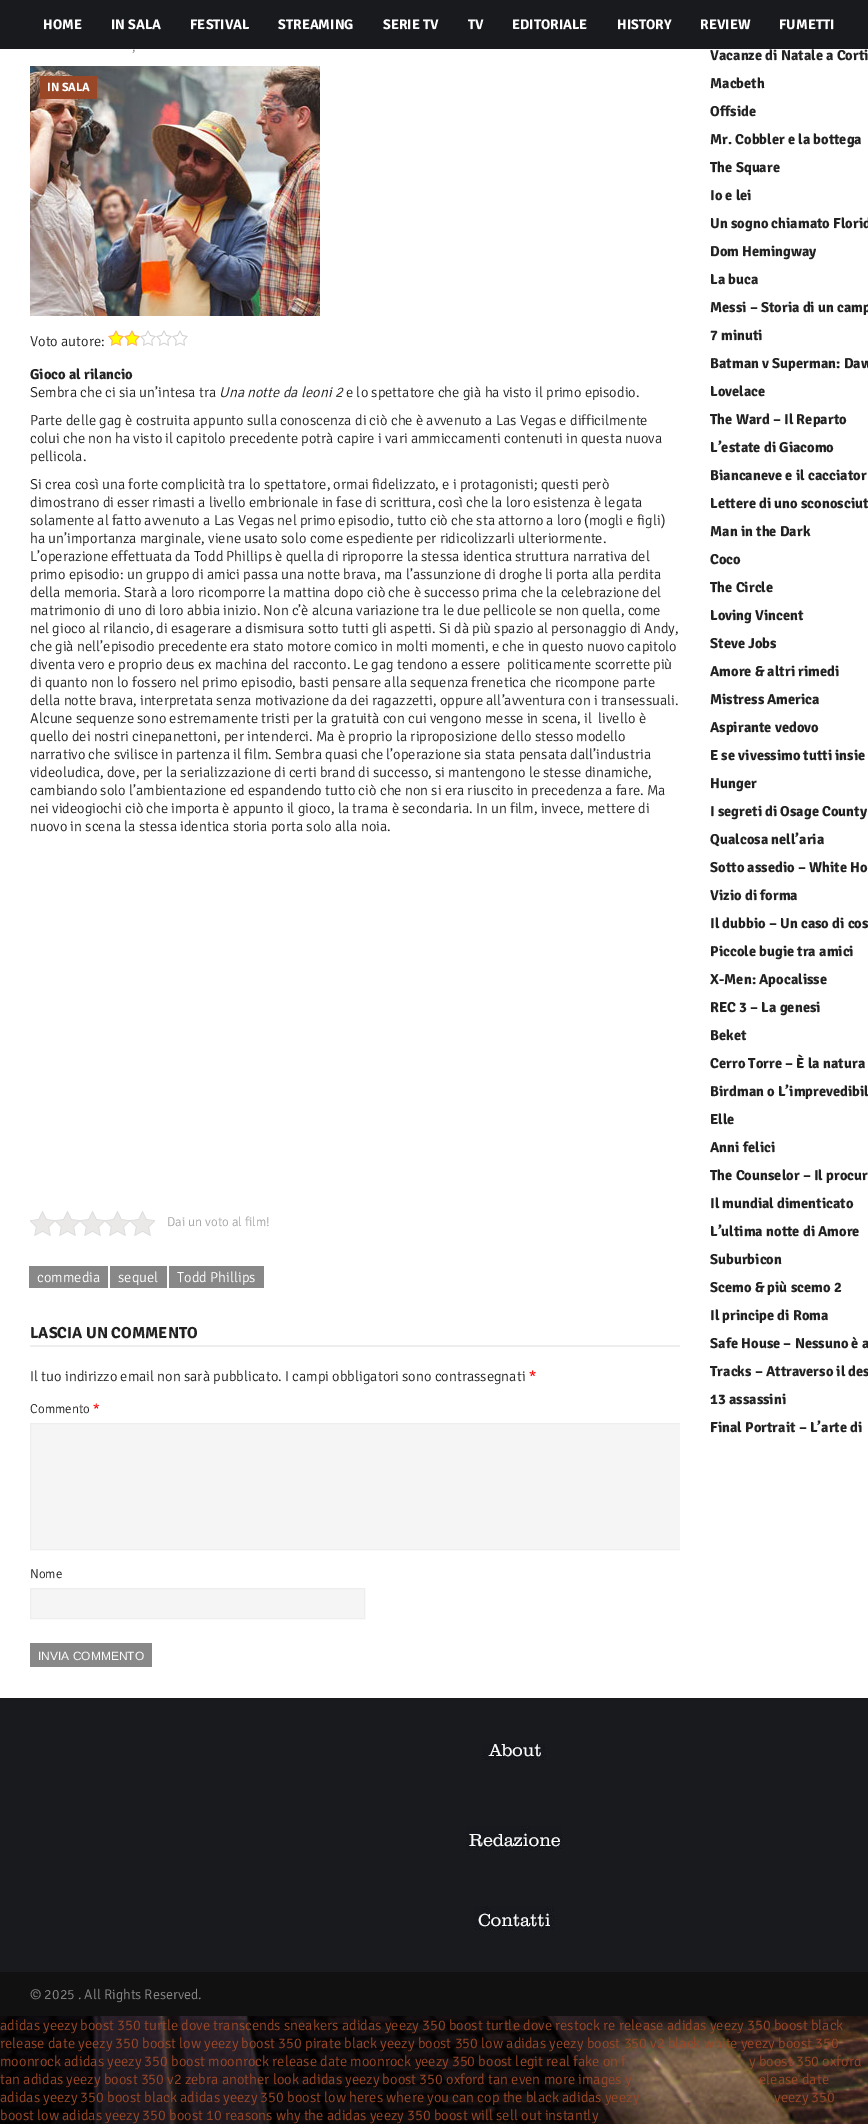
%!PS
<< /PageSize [868 2124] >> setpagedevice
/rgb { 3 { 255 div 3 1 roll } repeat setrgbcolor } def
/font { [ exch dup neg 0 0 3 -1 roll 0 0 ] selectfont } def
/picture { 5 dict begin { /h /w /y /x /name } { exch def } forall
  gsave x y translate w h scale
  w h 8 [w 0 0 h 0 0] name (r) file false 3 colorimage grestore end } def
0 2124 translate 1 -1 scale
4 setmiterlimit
255 255 255 rgb
0 0 868 2124 rectfill
25 26 30 rgb
0 0 868 49 rectfill
(img/1.rgb) 30 66 290 250 picture
154 71 39 rgb
40 76 57 23 rectfill
(img/2.rgb) 108 330 16 16 picture
(img/2.rgb) 124 330 16 16 picture
(img/3.rgb) 140 330 16 16 picture
(img/3.rgb) 156 330 16 16 picture
(img/3.rgb) 172 330 16 16 picture
(img/4.rgb) 30 1211 25 25 picture
(img/4.rgb) 55 1211 25 25 picture
(img/4.rgb) 80 1211 25 25 picture
(img/4.rgb) 105 1211 25 25 picture
(img/4.rgb) 130 1211 25 25 picture
[
  [29 1266 79 22 136 136 136]
  [110 1266 57 22 136 136 136]
  [169 1266 95 22 136 136 136]
  [30 1345 650 2 238 238 238]
  [31 1424 649 125 245 245 245]
] { aload pop rgb rectfill } forall
gsave
30 1321 650 367 rectclip
238 238 238 rgb
30.5 1423.5 650 126 rectstroke
grestore
30.5 1588.5 moveto 364.5 1588.5 lineto 364.5 1618.5 lineto 30.5 1618.5 lineto closepath gsave fill grestore
238 238 238 rgb
stroke
136 136 136 rgb
30 1643 122 24 rectfill
25 26 30 rgb
0 1698 868 274 rectfill
(img/5.rgb) 482 1744 64 16 picture
(img/6.rgb) 466 1826 96 24 picture
(img/7.rgb) 474 1906 80 24 picture
17 17 17 rgb
0 1972 868 44 rectfill
(img/8.rgb) 0 2016 868 108 picture
/Signika-Bold 14 font
255 255 255 rgb
[
  [(HOME) 43 29]
  [(IN SALA) 111 29]
  [(FESTIVAL) 190 29]
  [(STREAMING) 278 29]
  [(SERIE TV) 383 29]
  [(TV) 468 29]
  [(EDITORIALE) 512 29]
  [(HISTORY) 617 29]
  [(REVIEW) 700 29]
  [(FUMETTI) 779 29]
] { aload pop moveto show } forall
/Signika-Light 14 font
136 136 136 rgb
132 51 moveto (,) show
/Signika-Bold 12 font
255 255 255 rgb
47 91 moveto (IN SALA) show
/Signika-Light 14.5 font
34 34 34 rgb
30 346 moveto (Voto autore:) show
/Signika-Bold 14.5 font
30 379 moveto (Gioco al rilancio) show
/Signika-Light 14.5 font
30 397 moveto (Sembra che ci sia un’intesa tra) show
/Signika-LightItalic 14.5 font
219 397 moveto (Una notte da leoni 2) show
/Signika-Light 14.5 font
[
  [(e lo spettatore che già ha visto il primo episodio.) 346 397]
  [(Parte delle gag è costruita appunto sulla conoscenza di ciò che è avvenuto a Las Vegas e difficilmente) 30 425]
  [(colui che non ha visto il capitolo precedente potrà capire i vari ammiccamenti contenuti in questa nuova) 30 443]
  [(pellicola.) 30 461]
  [(Si crea così una forte complicità tra lo spettatore, ormai fidelizzato, e i protagonisti; questi però) 30 489]
  [(dimostrano di esser rimasti a livello embrionale in fase di scrittura, così che la loro esistenza è legata) 30 507]
  [(solamente al fatto avvenuto a Las Vegas nel primo episodio, tutto ciò che sta attorno a loro \(mogli e figli\)) 30 525]
  [(ha un’importanza marginale, viene usato solo come espediente per ridicolizzarli ulteriormente.) 30 543]
  [(L’operazione effettuata da Todd Phillips è quella di riproporre la stessa identica struttura narrativa del) 30 561]
  [(primo episodio: un gruppo di amici passa una notte brava, ma l’assunzione di droghe li porta alla perdita) 30 579]
  [(della memoria. Starà a loro ricomporre la mattina dopo ciò che è successo prima che la celebrazione del) 30 597]
  [(matrimonio di uno di loro abbia inizio. Non c’è alcuna variazione tra le due pellicole se non quella, come) 30 615]
  [(nel gioco al rilancio, di esagerare a dismisura sotto tutti gli aspetti. Si dà più spazio al personaggio di Andy,) 30 633]
  [(che già nell’episodio precedente era stato motore comico in molti momenti, e che in questo nuovo capitolo) 30 651]
  [(diventa vero e proprio deus ex machina del racconto. Le gag tendono a essere  politicamente scorrette più) 30 669]
  [(di quanto non lo fossero nel primo episodio, basti pensare alla sequenza frenetica che ricompone parte) 30 687]
  [(della notte brava, interpretata senza motivazione da dei ragazzetti, oppure all’avventura con i transessuali.) 30 705]
  [(Alcune sequenze sono estremamente tristi per la gratuità con cui vengono messe in scena, il  livello è) 30 723]
  [(quello dei nostri cinepanettoni, per intenderci. Ma è proprio la riproposizione dello stesso modello) 30 741]
  [(narrativo che svilisce in partenza il film. Sembra quasi che l’operazione sia stata pensata dall’industria) 30 759]
  [(videoludica, dove, per la serializzazione di certi brand di successo, si mantengono le stesse dinamiche,) 30 777]
  [(cambiando solo l’ambientazione ed espandendo tutto ciò che non si era riuscito in precedenza a fare. Ma) 30 795]
  [(nei videogiochi ciò che importa è appunto il gioco, la trama è secondaria. In un film, invece, mettere di) 30 813]
  [(nuovo in scena la stessa identica storia porta solo alla noia.) 30 831]
] { aload pop moveto show } forall
/Signika-Light 13 font
167 167 167 rgb
167 1226 moveto (Dai un voto al film!) show
/Signika-Light 14.5 font
255 255 255 rgb
[
  [(commedia) 37 1282]
  [(sequel) 118 1282]
  [(Todd Phillips) 177 1282]
] { aload pop moveto show } forall
/Signika-Bold 16 font
34 34 34 rgb
30 1338 moveto (LASCIA UN COMMENTO) show
/Signika-Light 14.5 font
30 1381 moveto (Il tuo indirizzo email non sarà pubblicato. I campi obbligatori sono contrassegnati) show
/Signika-Regular 14.5 font
255 0 0 rgb
529 1381 moveto (*) show
/Signika-Light 13 font
34 34 34 rgb
30 1413 moveto (Commento) show
/Signika-Regular 13 font
255 0 0 rgb
93 1413 moveto (*) show
/Signika-Light 13 font
34 34 34 rgb
30 1578 moveto (Nome) show
/LiberationSans-Regular 12 font
255 255 255 rgb
38 1660 moveto (INVIA COMMENTO) show
/Signika-Bold 14.5 font
34 34 34 rgb
[
  [(Vacanze di Natale a Corti) 710 60]
  [(Macbeth) 710 88]
  [(Offside) 710 116]
  [(Mr. Cobbler e la bottega) 710 144]
  [(The Square) 710 172]
  [(Io e lei) 710 200]
  [(Un sogno chiamato Florid) 710 228]
  [(Dom Hemingway) 710 256]
  [(La buca) 710 284]
  [(Messi – Storia di un camp) 710 312]
  [(7 minuti) 710 340]
  [(Batman v Superman: Daw) 710 368]
  [(Lovelace) 710 396]
  [(The Ward – Il Reparto) 710 424]
  [(L’estate di Giacomo) 710 452]
  [(Biancaneve e il cacciator) 710 480]
  [(Lettere di uno sconosciut) 710 508]
  [(Man in the Dark) 710 536]
  [(Coco) 710 564]
  [(The Circle) 710 592]
  [(Loving Vincent) 710 620]
  [(Steve Jobs) 710 648]
  [(Amore & altri rimedi) 710 676]
  [(Mistress America) 710 704]
  [(Aspirante vedovo) 710 732]
  [(E se vivessimo tutti insie) 710 760]
  [(Hunger) 710 788]
  [(I segreti di Osage County) 710 816]
  [(Qualcosa nell’aria) 710 844]
  [(Sotto assedio – White Ho) 710 872]
  [(Vizio di forma) 710 900]
  [(Il dubbio – Un caso di cos) 710 928]
  [(Piccole bugie tra amici) 710 956]
  [(X-Men: Apocalisse) 710 984]
  [(REC 3 – La genesi) 710 1012]
  [(Beket) 710 1040]
  [(Cerro Torre – È la natura) 710 1068]
  [(Birdman o L’imprevedibil) 710 1096]
  [(Elle) 710 1124]
  [(Anni felici) 710 1152]
  [(The Counselor – Il procur) 710 1180]
  [(Il mundial dimenticato) 710 1208]
  [(L’ultima notte di Amore) 710 1236]
  [(Suburbicon) 710 1264]
  [(Scemo & più scemo 2) 710 1292]
  [(Il principe di Roma) 710 1320]
  [(Safe House – Nessuno è a) 710 1348]
  [(Tracks – Attraverso il des) 710 1376]
  [(13 assassini) 710 1404]
  [(Final Portrait – L’arte di) 710 1432]
] { aload pop moveto show } forall
/Signika-Light 14 font
136 136 136 rgb
30 1999 moveto (© 2025 . All Rights Reserved.) show
/Signika-Light 14.5 font
154 71 39 rgb
[
  [(adidas yeezy boost 350 turtle dove transcends sneakers adidas yeezy 350 boost turtle dove restock re release adidas yeezy 350 boost black) 0 2030]
  [(release date yeezy 350 boost low yeezy boost 350 pirate black yeezy boost 350 low adidas yeezy boost 350 v2 black white yeezy boost 350) 0 2048]
  [(moonrock adidas yeezy 350 boost moonrock release date moonrock yeezy 350 boost legit real fake on f) 0 2066]
  [(y boost 350 oxford) 749 2066]
  [(tan adidas yeezy boost 350 v2 zebra another look adidas yeezy boost 350 oxford tan even more images y) 0 2084]
  [(elease date) 759 2084]
  [(adidas yeezy 350 boost black adidas yeezy 350 boost low heres where you can cop the black adidas yeezy) 0 2102]
  [(yeezy 350) 774 2102]
  [(boost low adidas yeezy 350 boost 10 reasons why the adidas yeezy 350 boost will sell out instantly) 0 2120]
] { aload pop moveto show } forall
showpage
